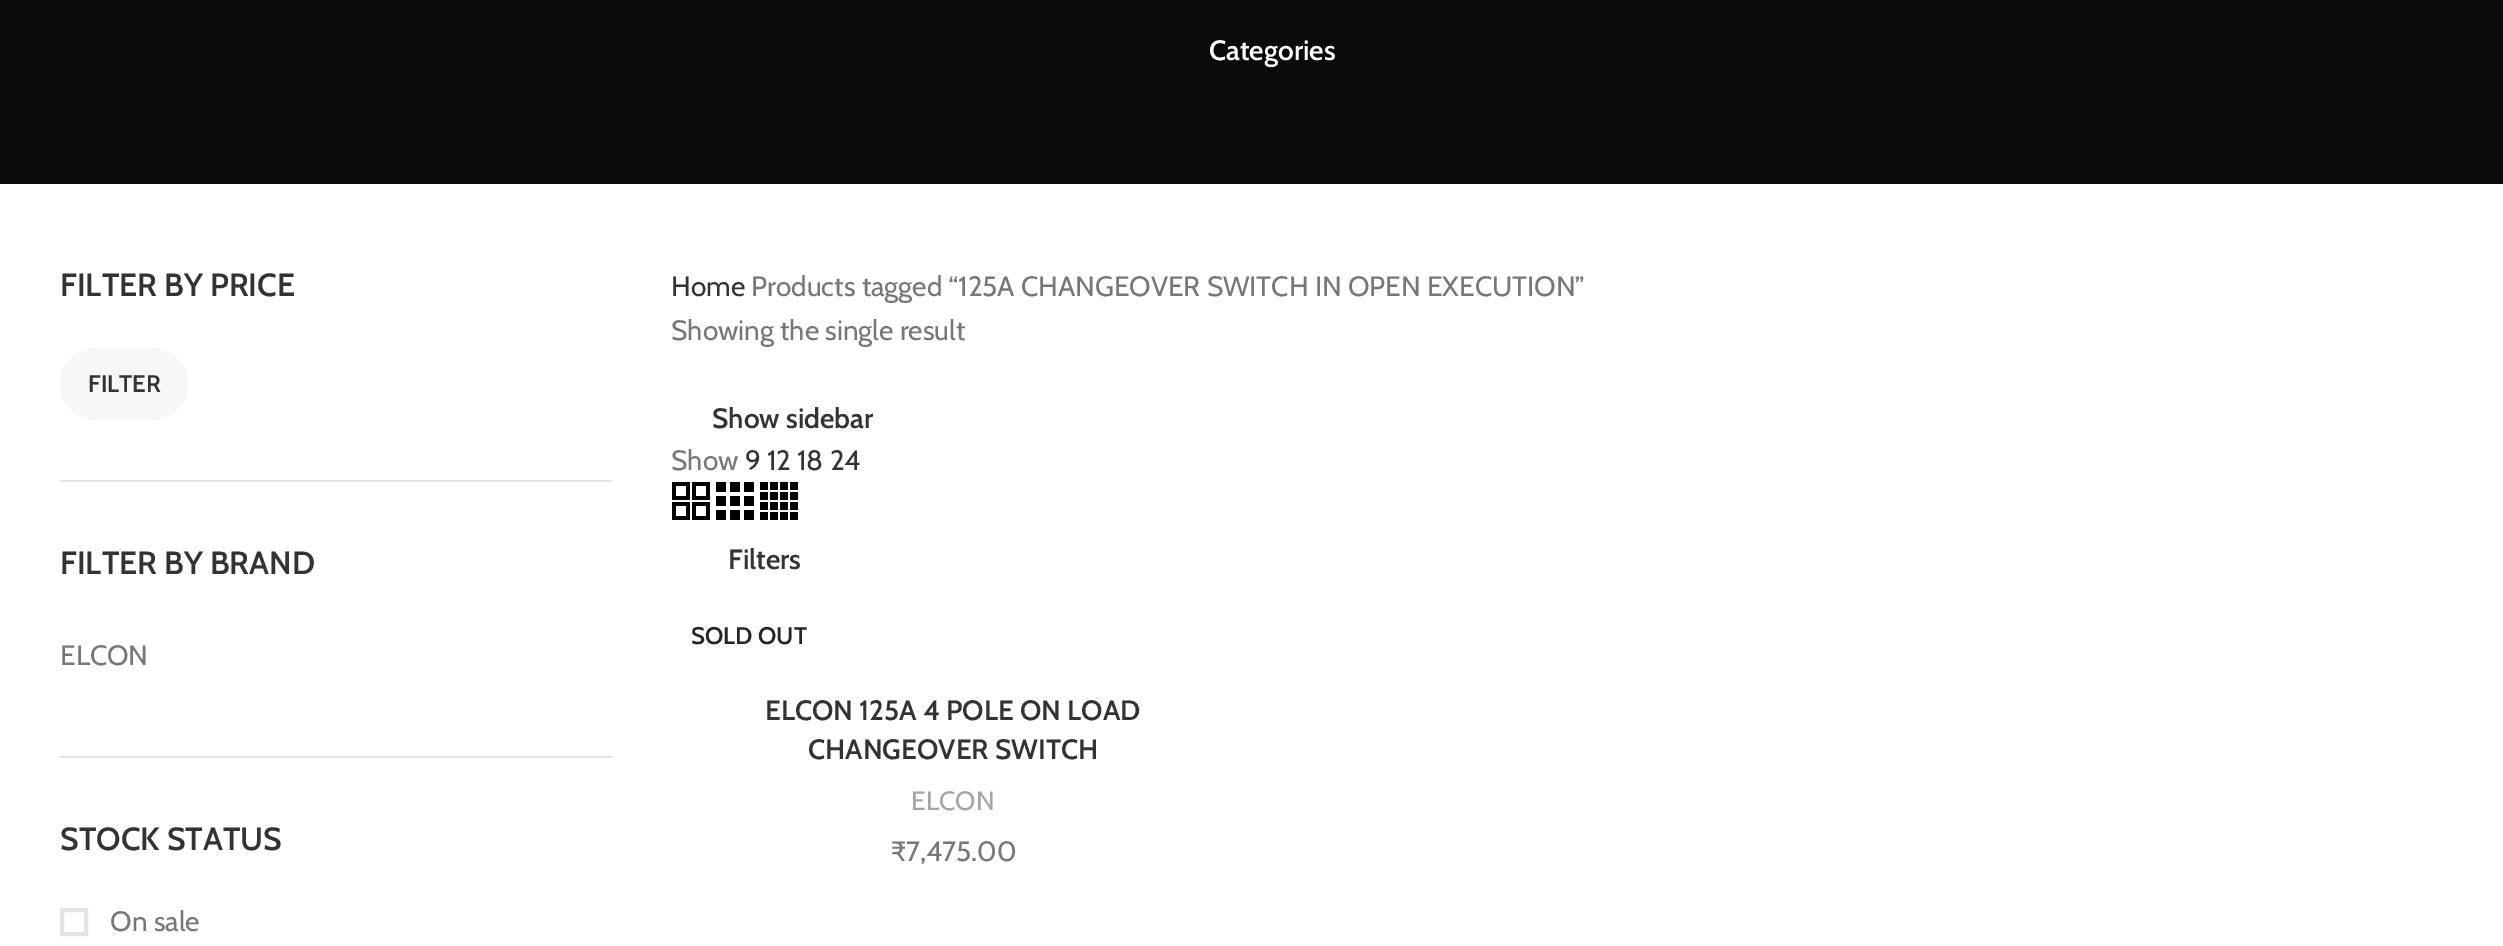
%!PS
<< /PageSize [2503 946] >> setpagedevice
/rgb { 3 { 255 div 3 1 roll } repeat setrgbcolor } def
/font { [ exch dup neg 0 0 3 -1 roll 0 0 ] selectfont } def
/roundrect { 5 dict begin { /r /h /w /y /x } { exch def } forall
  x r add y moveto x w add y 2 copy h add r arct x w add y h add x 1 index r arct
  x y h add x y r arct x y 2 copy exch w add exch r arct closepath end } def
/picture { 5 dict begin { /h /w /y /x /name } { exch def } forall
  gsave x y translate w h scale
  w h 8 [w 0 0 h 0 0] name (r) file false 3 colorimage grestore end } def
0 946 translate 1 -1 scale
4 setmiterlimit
255 255 255 rgb
0 0 2503 946 rectfill
10 10 10 rgb
0 0 2503 184 rectfill
228 228 228 rgb
60 480 552 2 rectfill
247 247 247 rgb
60 348 128 72 36 roundrect fill
228 228 228 rgb
60 756 552 2 rectfill
4 setlinewidth
62 910 24 24 rectstroke
(img/1.rgb) 672 482 38 38 picture
(img/2.rgb) 716 482 38 38 picture
(img/3.rgb) 760 482 38 38 picture
/Cabin-SemiBold 28 font
255 255 255 rgb
1209 60 moveto (Categories) show
/Cabin-SemiBold 32 font
51 51 51 rgb
60 296 moveto (FILTER BY PRICE) show
/Cabin-SemiBold 24 font
88 392 moveto (FILTER) show
/Cabin-SemiBold 32 font
60 574 moveto (FILTER BY BRAND) show
/Cabin-Regular 28 font
119 119 119 rgb
60 665 moveto (ELCON) show
/Cabin-SemiBold 32 font
51 51 51 rgb
60 850 moveto (STOCK STATUS) show
/Cabin-Regular 28 font
119 119 119 rgb
110 931 moveto (On sale) show
51 51 51 rgb
671 296 moveto (Home) show
119 119 119 rgb
751 296 moveto (Products tagged “125A CHANGEOVER SWITCH IN OPEN EXECUTION”) show
671 340 moveto (Showing the single result) show
/Cabin-SemiBold 28 font
51 51 51 rgb
712 428 moveto (Show sidebar) show
/Cabin-Regular 28 font
119 119 119 rgb
671 470 moveto (Show) show
51 51 51 rgb
745 470 moveto (9 12 18 24) show
/Cabin-SemiBold 28 font
728 569 moveto (Filters) show
/Cabin-SemiBold 24 font
36 36 36 rgb
691 644 moveto (SOLD OUT) show
/Cabin-SemiBold 28 font
51 51 51 rgb
765 720 moveto (ELCON 125A 4 POLE ON LOAD) show
808 759 moveto (CHANGEOVER SWITCH) show
/Cabin-Regular 26.5 font
165 165 165 rgb
911 810 moveto (ELCON) show
/Cabin-Regular 28 font
119 119 119 rgb
891 861 moveto (₹7,475.00) show
showpage
